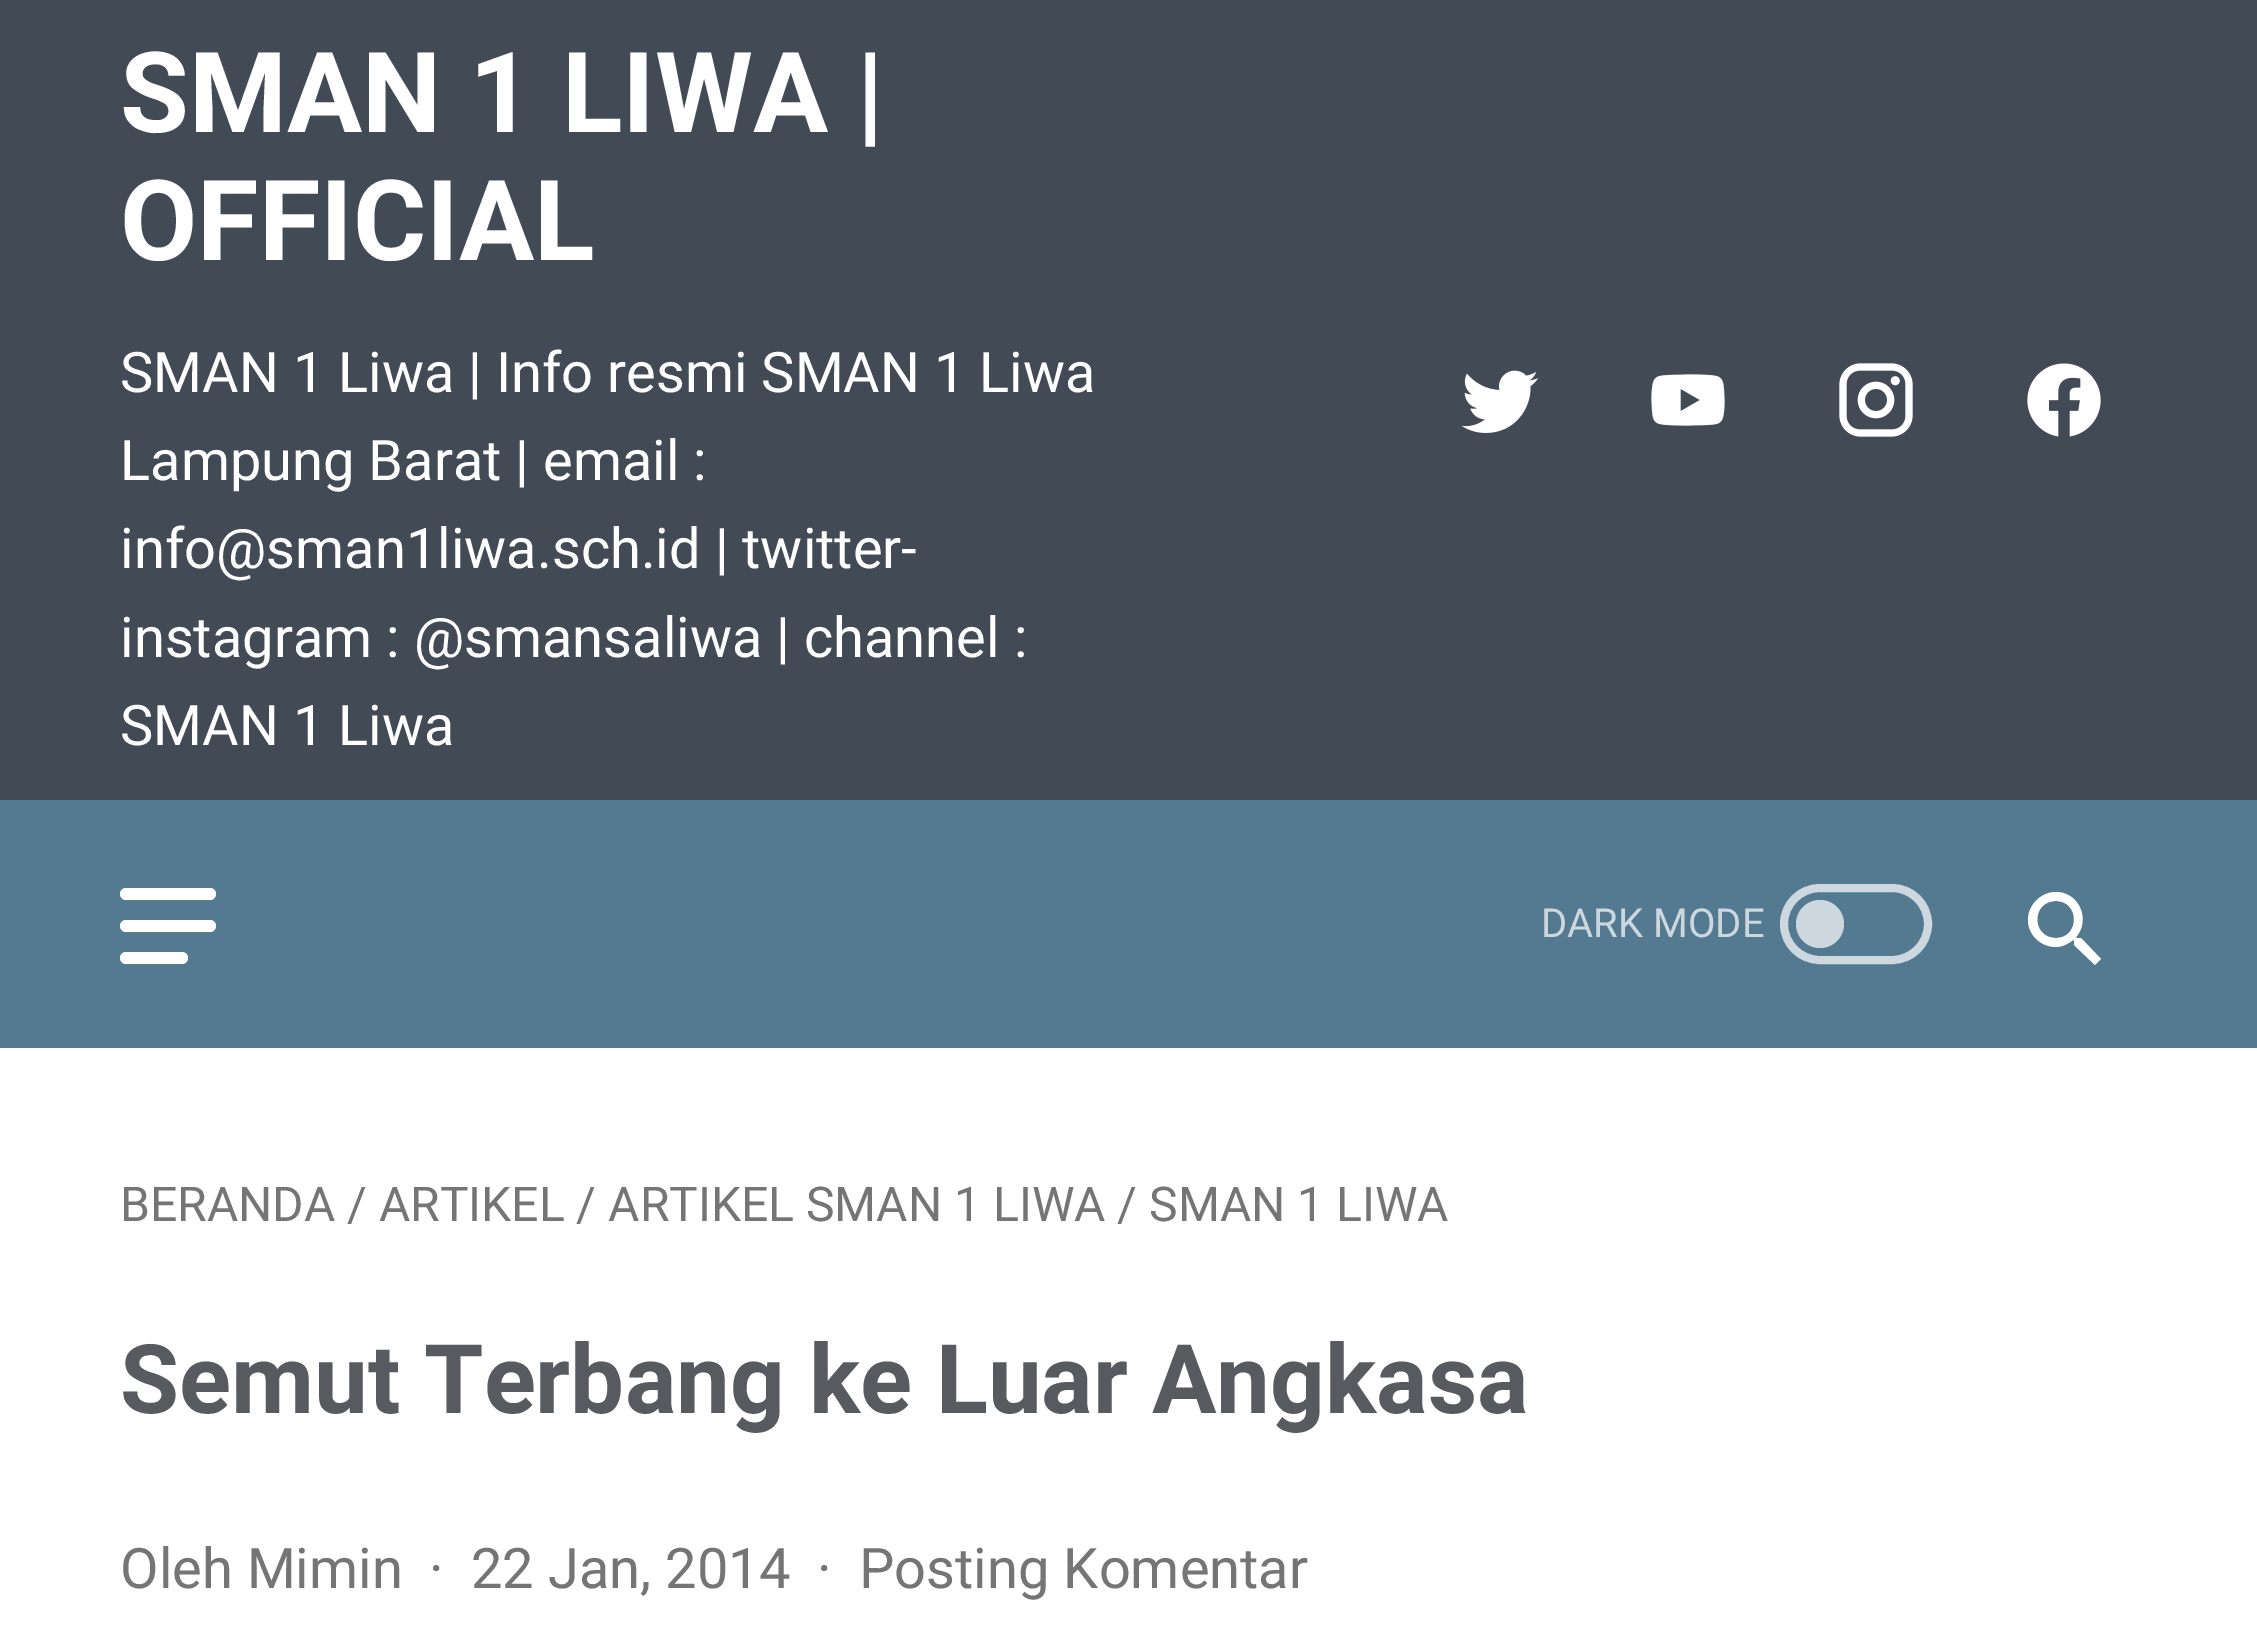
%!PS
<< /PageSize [2257 1647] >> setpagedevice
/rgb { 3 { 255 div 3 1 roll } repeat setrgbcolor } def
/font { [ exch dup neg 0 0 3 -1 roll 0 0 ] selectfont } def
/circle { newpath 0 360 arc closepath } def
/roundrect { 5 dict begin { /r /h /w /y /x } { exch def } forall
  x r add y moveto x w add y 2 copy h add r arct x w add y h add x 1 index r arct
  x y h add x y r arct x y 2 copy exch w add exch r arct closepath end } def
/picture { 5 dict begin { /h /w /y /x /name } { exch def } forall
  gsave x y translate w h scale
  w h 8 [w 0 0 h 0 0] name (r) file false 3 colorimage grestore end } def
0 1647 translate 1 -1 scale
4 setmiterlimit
84 122 146 rgb
0 0 2257 1647 rectfill
66 74 86 rgb
0 0 2257 800 rectfill
(img/1.rgb) 1462 370 77 63 picture
(img/2.rgb) 1651 374 74 52 picture
(img/3.rgb) 1839 363 74 74 picture
(img/4.rgb) 2027 363 74 74 picture
255 255 255 rgb
120 888 96 12 6 roundrect fill
120 920 96 12 6 roundrect fill
120 952 68 12 6 roundrect fill
204 215 222 rgb
8 setlinewidth
1784 888 144 72 36 roundrect stroke
1820 924 24 circle fill
255 255 255 rgb
2056 892 moveto 2079 892 2091 920 2076 937 curveto 2077 938 lineto 2081 938 lineto 2101 959 lineto 2095 965 lineto 2074 945 lineto 2074 941 lineto 2073 940 lineto 2068 944 2062 947 2056 947 curveto 2041 947 2028 935 2028 920 curveto 2028 905 2041 892 2056 892 curveto 2056 901 moveto 2031 901 2031 938 2056 938 curveto 2080 938 2080 901 2056 901 curveto closepath fill
0 1048 2257 599 rectfill
/Roboto-Bold 112 font
120 132 moveto (SMAN 1 LIWA |) show
120 260 moveto (OFFICIAL) show
/Roboto-Regular 56 font
[
  [(SMAN 1 Liwa | Info resmi SMAN 1 Liwa) 120 392]
  [(Lampung Barat | email :) 120 480]
  [(info@sman1liwa.sch.id | twitter-) 120 568]
  [(instagram : @smansaliwa | channel :) 120 657]
  [(SMAN 1 Liwa) 120 745]
] { aload pop moveto show } forall
/Roboto-Regular 40 font
204 215 222 rgb
1541 937 moveto (DARK MODE) show
/Roboto-Regular 48 font
117 117 117 rgb
120 1221 moveto (BERANDA / ARTIKEL / ARTIKEL SMAN 1 LIWA / SMAN 1 LIWA) show
/Roboto-Bold 96 font
87 90 95 rgb
120 1413 moveto (Semut Terbang ke Luar Angkasa) show
/Roboto-Regular 56 font
117 117 117 rgb
[
  [(Oleh Mimin) 120 1588]
  [(·) 429 1588]
  [(22 Jan, 2014) 471 1588]
  [(·) 817 1588]
  [(Posting Komentar) 859 1588]
] { aload pop moveto show } forall
showpage
